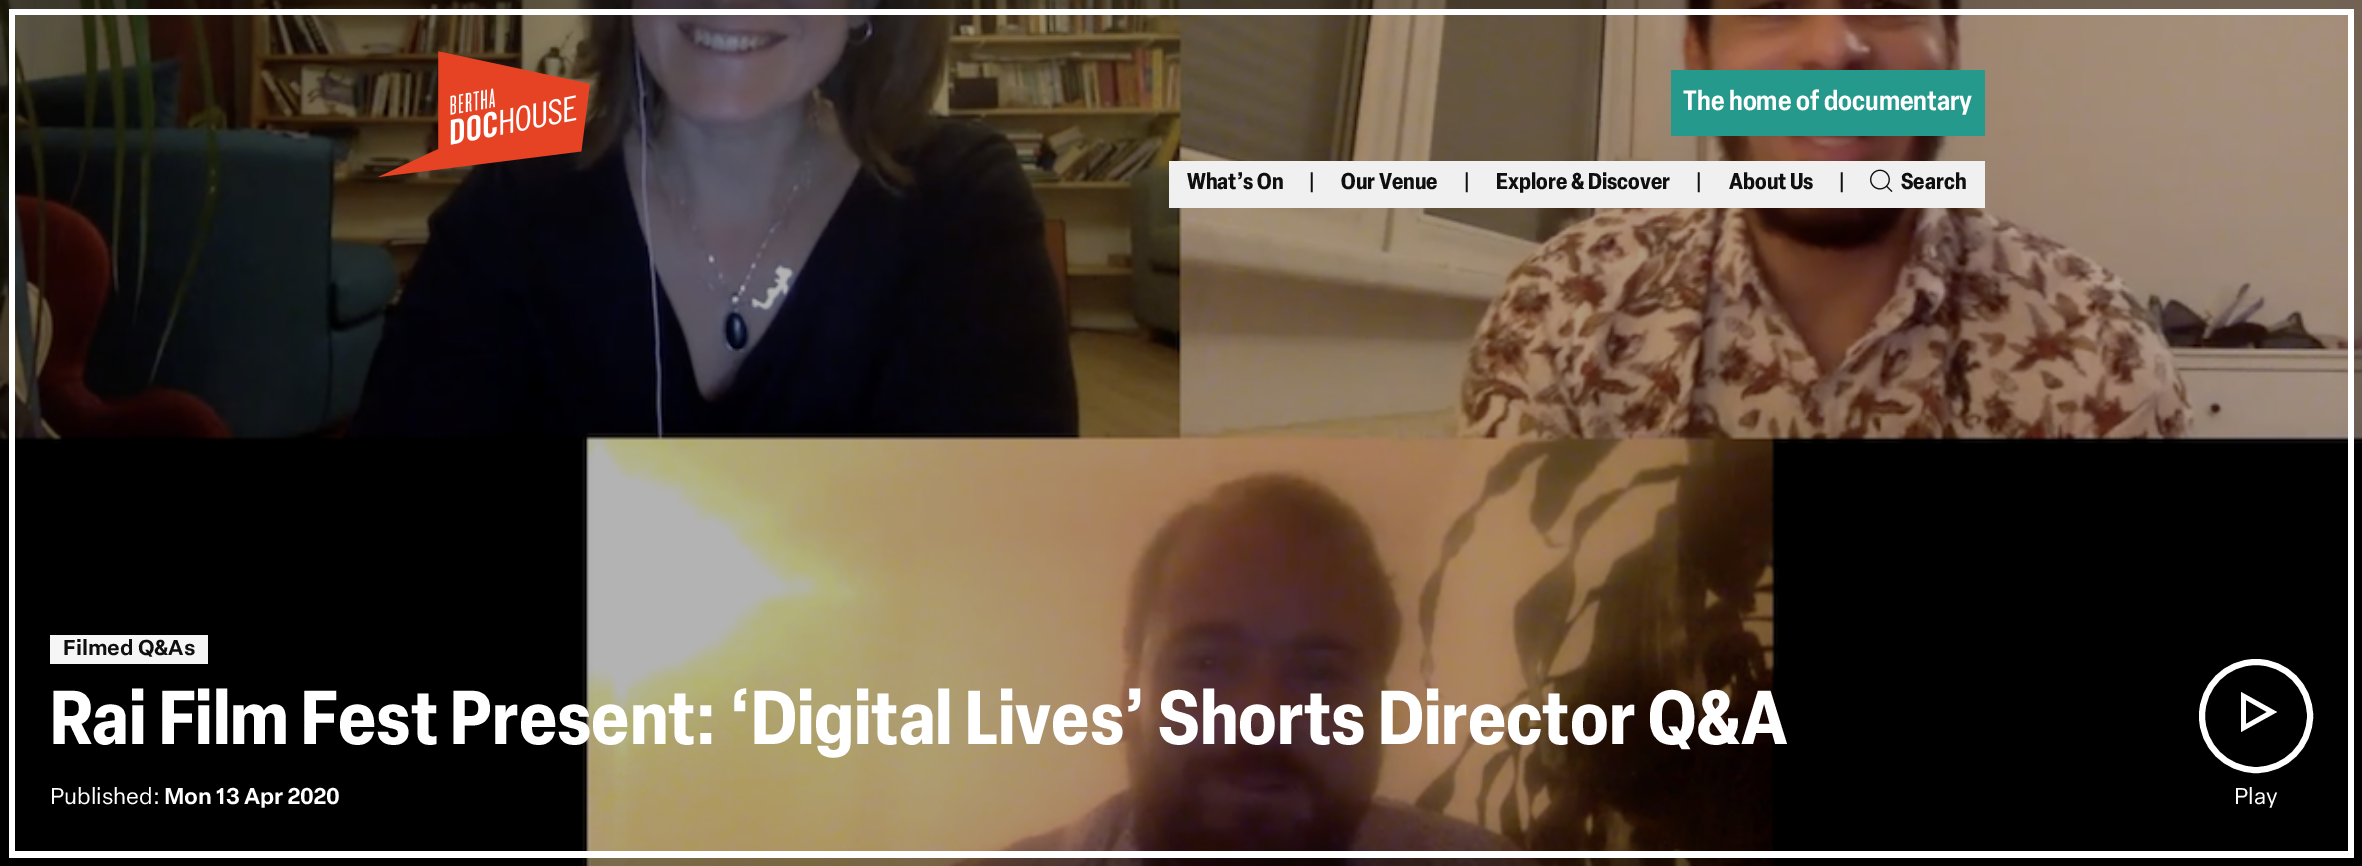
%!PS
<< /PageSize [2362 866] /PageUsesTransparency true >> setpagedevice
/rgb { 3 { 255 div 3 1 roll } repeat setrgbcolor } def
/font { [ exch dup neg 0 0 3 -1 roll 0 0 ] selectfont } def
/alpha { dup .setfillconstantalpha .setstrokeconstantalpha } def
/circle { newpath 0 360 arc closepath } def
/picture { 5 dict begin { /h /w /y /x /name } { exch def } forall
  gsave x y translate w h scale
  w h 8 [w 0 0 h 0 0] name (r) file false 3 colorimage grestore end } def
0 .pushpdf14devicefilter
0 866 translate 1 -1 scale
4 setmiterlimit
255 255 255 rgb
0 0 2362 866 rectfill
(img/3.rgb) 0 0 2362 866 picture
0.3 alpha
[
  [0 0 2362 15 0 0 0]
] { aload pop rgb rectfill } forall
1 alpha
[
  [9 9 2345 6 255 255 255]
] { aload pop rgb rectfill } forall
0.3 alpha
[
  [0 15 9 425 0 0 0]
  [583 851 1189 15 0 0 0]
] { aload pop rgb rectfill } forall
1 alpha
[
  [9 851 2345 7 255 255 255]
  [9 9 6 849 255 255 255]
] { aload pop rgb rectfill } forall
0.3 alpha
[
  [2354 15 8 428 0 0 0]
] { aload pop rgb rectfill } forall
1 alpha
[
  [2348 9 6 849 255 255 255]
] { aload pop rgb rectfill } forall
(img/1.rgb) 378 51 212 127 picture
37 153 139 rgb
1671 70 314 66 rectfill
240 240 240 rgb
1169 161 816 47 rectfill
(img/2.rgb) 1870 169 23 23 picture
246 246 246 rgb
50 635 158 29 rectfill
255 255 255 rgb
6 setlinewidth
2256 716 54 circle stroke
2241 732 moveto 2241 692 lineto 2277 712 lineto closepath 2246 700 moveto 2246 724 lineto 2267 712 lineto closepath fill
/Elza-SemiBold 27.5 font
1683 110 moveto (The home of documentary) show
/Elza-Bold 22.5 font
15 15 15 rgb
1187 189 moveto (What’s On) show
/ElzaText-Regular 22.5 font
1307 189 moveto (|) show
/Elza-Bold 22.5 font
1341 189 moveto (Our Venue) show
/ElzaText-Regular 22.5 font
1462 189 moveto (|) show
/Elza-Bold 22.5 font
1496 189 moveto (Explore & Discover) show
/ElzaText-Regular 22.5 font
1694 189 moveto (|) show
/Elza-Bold 22.5 font
1729 189 moveto (About Us) show
/ElzaText-Regular 22.5 font
1837 189 moveto (|) show
/Elza-Bold 22.5 font
1901 189 moveto (Search) show
/ElzaText-SemiBold 21.25 font
63 655 moveto (Filmed Q&As) show
/Elza-Bold 75 font
255 255 255 rgb
50 744 moveto (Rai Film Fest Present: ‘Digital Lives’ Shorts Director Q&A) show
/ElzaText-Regular 22.5 font
50 804 moveto (Published:) show
/ElzaText-SemiBold 22.5 font
164 804 moveto (Mon 13 Apr 2020) show
/ElzaText-Regular 22.5 font
2234 804 moveto (Play) show
.poppdf14devicefilter showpage
